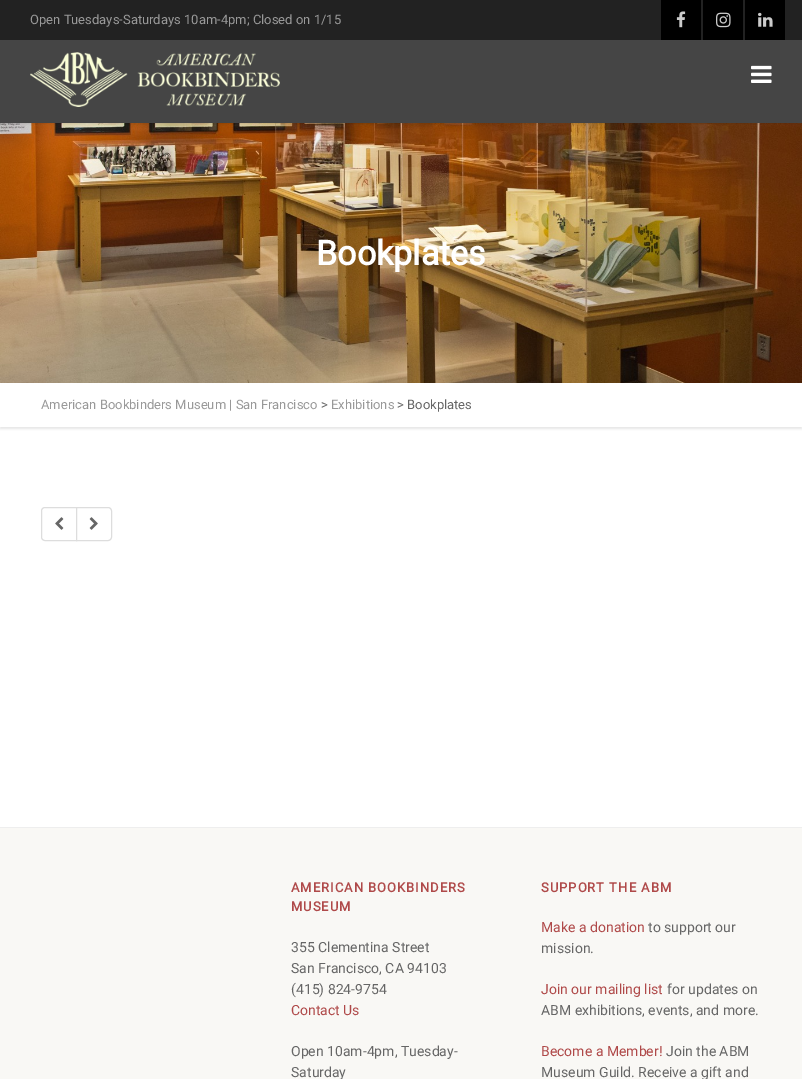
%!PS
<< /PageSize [802 1079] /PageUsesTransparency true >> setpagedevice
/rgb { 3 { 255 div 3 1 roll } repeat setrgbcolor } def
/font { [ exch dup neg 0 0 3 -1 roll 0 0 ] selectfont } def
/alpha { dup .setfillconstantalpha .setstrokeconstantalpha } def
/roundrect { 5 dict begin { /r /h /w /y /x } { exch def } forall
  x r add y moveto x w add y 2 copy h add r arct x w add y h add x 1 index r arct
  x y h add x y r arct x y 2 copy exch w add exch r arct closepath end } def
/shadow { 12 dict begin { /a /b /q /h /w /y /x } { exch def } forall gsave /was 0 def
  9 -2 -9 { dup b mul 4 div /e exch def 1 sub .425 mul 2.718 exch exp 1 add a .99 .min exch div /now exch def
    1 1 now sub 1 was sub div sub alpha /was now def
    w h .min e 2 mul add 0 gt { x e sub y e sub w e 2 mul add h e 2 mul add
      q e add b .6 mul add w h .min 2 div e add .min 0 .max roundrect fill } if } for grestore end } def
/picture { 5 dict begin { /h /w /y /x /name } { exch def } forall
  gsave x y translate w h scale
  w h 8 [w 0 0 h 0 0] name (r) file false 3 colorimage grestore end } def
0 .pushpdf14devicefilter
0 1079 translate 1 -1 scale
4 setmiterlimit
255 255 255 rgb
0 0 802 1079 rectfill
34 34 34 rgb
0 0 802 40 rectfill
0 0 0 rgb
661 0 40 40 rectfill
(img/1.rgb) 676 11 10 17 picture
703 0 40 40 rectfill
(img/2.rgb) 716 12 15 16 picture
745 0 40 40 rectfill
(img/3.rgb) 758 12 15 15 picture
gsave
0 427 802 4 rectclip
230 230 230 rgb
0 385 802 44 0 1 1 shadow
grestore
(img/6.rgb) 0 123 802 260 picture
0 41 802 83 0 1 0.1 shadow
69 69 69 rgb
0 40 802 83 rectfill
(img/4.rgb) 30 52 250 55 picture
(img/5.rgb) 751 65 21 18 picture
221 221 221 rgb
45 507.5 moveto 76.5 507.5 lineto 76.5 540.5 lineto 45 540.5 lineto 43 540.5 41.5 539 41.5 537 curveto 41.5 511 lineto 41.5 509 43 507.5 45 507.5 curveto closepath stroke
(img/7.rgb) 55 517 9 13 picture
255 255 255 rgb
76.5 507.5 moveto 108 507.5 lineto 110 507.5 111.5 509 111.5 511 curveto 111.5 537 lineto 111.5 539 110 540.5 108 540.5 curveto 76.5 540.5 lineto closepath gsave fill grestore
221 221 221 rgb
stroke
(img/8.rgb) 89 517 9 13 picture
249 248 245 rgb
0 828 802 251 rectfill
238 238 238 rgb
0 827 802 1 rectfill
/Roboto-Regular 13 font
153 153 153 rgb
30 24 moveto (Open Tuesdays-Saturdays 10am-4pm; Closed on 1/15) show
/Roboto-Bold 34 font
255 255 255 rgb
316 265 moveto (Bookplates) show
/Roboto-Regular 13 font
153 153 153 rgb
41 409 moveto (American Bookbinders Museum | San Francisco) show
102 102 102 rgb
321 409 moveto (>) show
153 153 153 rgb
331 409 moveto (Exhibitions) show
102 102 102 rgb
397 409 moveto (> Bookplates) show
/Roboto-Bold 13 font
175 73 73 rgb
291 892 moveto 1 0 (AMERICAN BOOKBINDERS) ashow
291 911 moveto 1 0 (MUSEUM) ashow
/Roboto-Regular 14 font
102 102 102 rgb
[
  [(355 Clementina Street) 291 952]
  [(San Francisco, CA 94103) 291 973]
  [(\(415\) 824-9754) 291 994]
] { aload pop moveto show } forall
175 73 73 rgb
291 1015 moveto (Contact Us) show
102 102 102 rgb
291 1056 moveto (Open 10am-4pm, Tuesday-) show
291 1077 moveto (Saturday) show
/Roboto-Bold 13 font
175 73 73 rgb
541 892 moveto 1 0 (SUPPORT THE ABM) ashow
/Roboto-Regular 14 font
541 932 moveto (Make a donation) show
102 102 102 rgb
648 932 moveto (to support our) show
541 953 moveto (mission.) show
175 73 73 rgb
541 994 moveto (Join our mailing list) show
102 102 102 rgb
667 994 moveto (for updates on) show
541 1015 moveto (ABM exhibitions, events, and more.) show
175 73 73 rgb
541 1056 moveto (Become a Member!) show
102 102 102 rgb
666 1056 moveto (Join the ABM) show
541 1077 moveto (Museum Guild. Receive a gift and) show
.poppdf14devicefilter showpage
